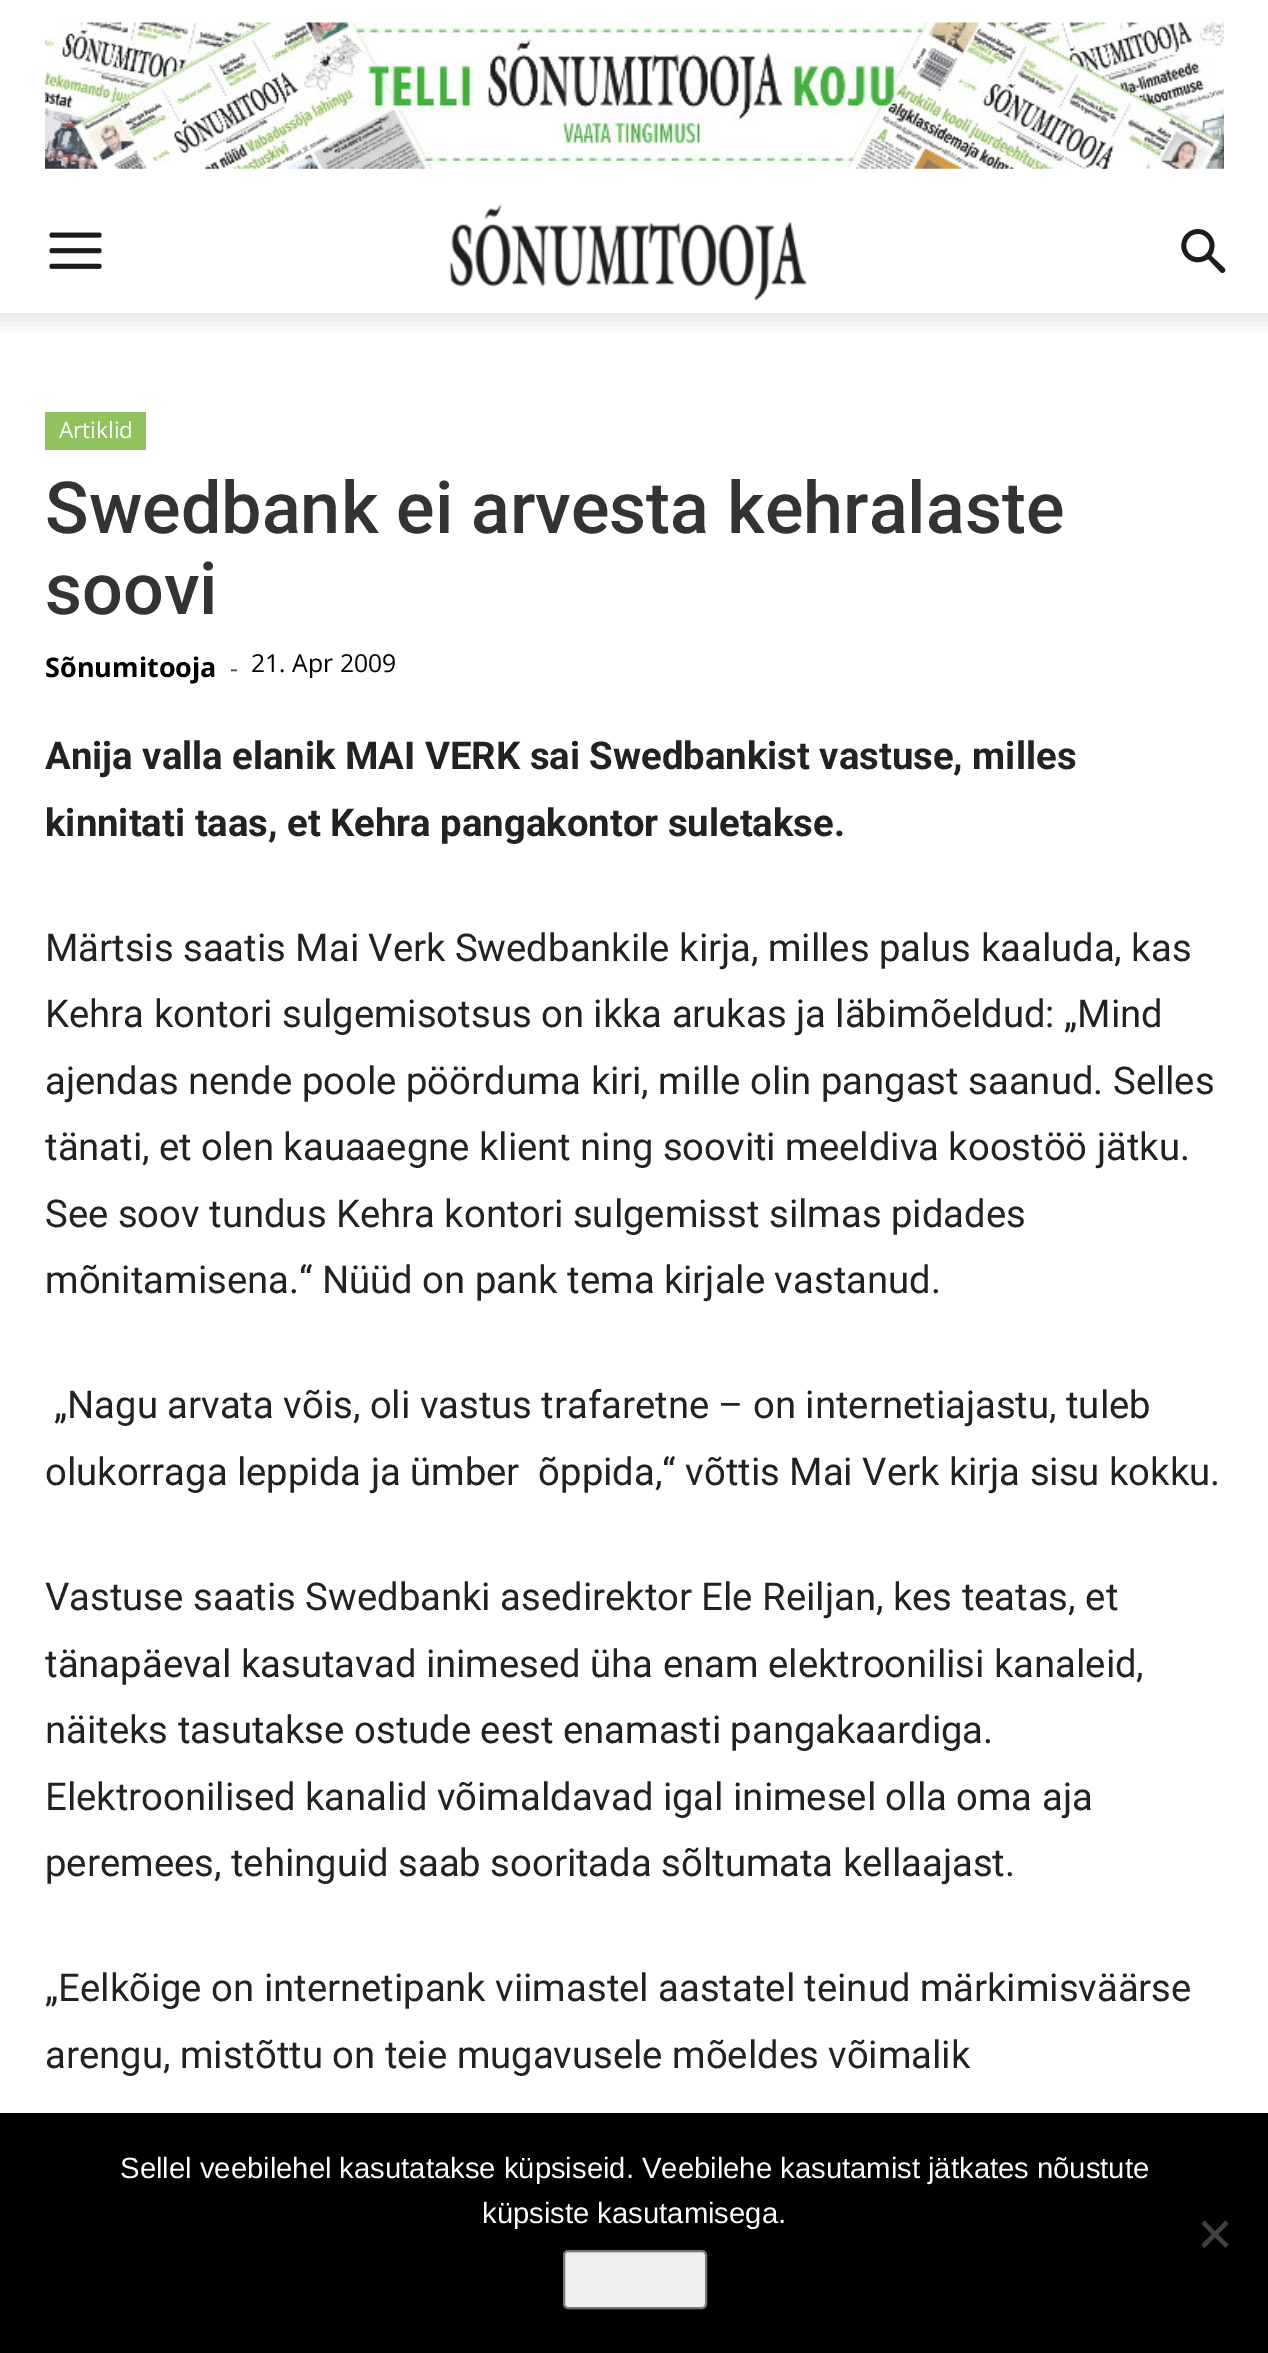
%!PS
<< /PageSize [1268 2353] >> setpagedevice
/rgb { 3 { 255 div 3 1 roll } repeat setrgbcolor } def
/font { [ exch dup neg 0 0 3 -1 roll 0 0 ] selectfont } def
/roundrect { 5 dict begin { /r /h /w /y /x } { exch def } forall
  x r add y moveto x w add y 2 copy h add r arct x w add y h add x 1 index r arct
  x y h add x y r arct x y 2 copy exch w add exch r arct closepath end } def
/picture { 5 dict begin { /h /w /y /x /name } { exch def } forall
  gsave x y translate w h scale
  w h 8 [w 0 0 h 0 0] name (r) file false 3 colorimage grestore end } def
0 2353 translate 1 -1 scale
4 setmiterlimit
255 255 255 rgb
0 0 1268 2353 rectfill
(img/1.rgb) 45 22 1179 147 picture
(img/2.rgb) 49 232 53 37 picture
(img/3.rgb) 449 204 358 97 picture
(img/4.rgb) 1181 229 45 44 picture
(img/5.rgb) 0 313 1268 19 picture
146 194 95 rgb
45 412 101 38 rectfill
0 0 0 rgb
0 2113 1268 240 rectfill
64 64 64 rgb
1225.5 2220.5 moveto 1228.5 2224 lineto 1204.5 2248 lineto 1201.5 2244.5 lineto closepath fill
1201.5 2224 moveto 1204.5 2220.5 lineto 1228.5 2244.5 lineto 1225.5 2248 lineto closepath fill
239 239 239 rgb
564 2251 142 57 4 roundrect gsave fill grestore
118 118 118 rgb
2 setlinewidth
stroke
/OpenSans-Regular 22.5 font
255 255 255 rgb
59 438 moveto (Artiklid) show
/Roboto-Medium 72 font
51 51 51 rgb
45 533 moveto (Swedbank ei arvesta kehralaste) show
45 614 moveto (soovi) show
/OpenSans-Bold 27 font
0 0 0 rgb
45 677 moveto (Sõnumitooja) show
/OpenSans-Regular 24.75 font
68 68 68 rgb
230 677 moveto (-) show
0 0 0 rgb
251 672 moveto (21. Apr 2009) show
/Roboto-Bold 38.25 font
34 34 34 rgb
45 769 moveto (Anija valla elanik MAI VERK sai Swedbankist vastuse, milles) show
45 836 moveto (kinnitati taas, et Kehra pangakontor suletakse.) show
/Roboto-Regular 38.25 font
[
  [(Märtsis saatis Mai Verk Swedbankile kirja, milles palus kaaluda, kas) 45 961]
  [(Kehra kontori sulgemisotsus on ikka arukas ja läbimõeldud: „Mind) 45 1027]
  [(ajendas nende poole pöörduma kiri, mille olin pangast saanud. Selles) 45 1094]
  [(tänati, et olen kauaaegne klient ning sooviti meeldiva koostöö jätku.) 45 1160]
  [(See soov tundus Kehra kontori sulgemisst silmas pidades) 45 1227]
  [(mõnitamisena.“ Nüüd on pank tema kirjale vastanud.) 45 1293]
  [(„Nagu arvata võis, oli vastus trafaretne – on internetiajastu, tuleb) 54 1418]
  [(olukorraga leppida ja ümber  õppida,“ võttis Mai Verk kirja sisu kokku.) 45 1485]
  [(Vastuse saatis Swedbanki asedirektor Ele Reiljan, kes teatas, et) 45 1610]
  [(tänapäeval kasutavad inimesed üha enam elektroonilisi kanaleid,) 45 1677]
  [(näiteks tasutakse ostude eest enamasti pangakaardiga.) 45 1743]
  [(Elektroonilised kanalid võimaldavad igal inimesel olla oma aja) 45 1810]
  [(peremees, tehinguid saab sooritada sõltumata kellaajast.) 45 1876]
  [(„Eelkõige on internetipank viimastel aastatel teinud märkimisväärse) 45 2001]
  [(arengu, mistõttu on teie mugavusele mõeldes võimalik) 45 2068]
] { aload pop moveto show } forall
/LiberationSans-Regular 29.25 font
255 255 255 rgb
120 2178 moveto (Sellel veebilehel kasutatakse küpsiseid. Veebilehe kasutamist jätkates nõustute) show
482 2223 moveto (küpsiste kasutamisega.) show
showpage
